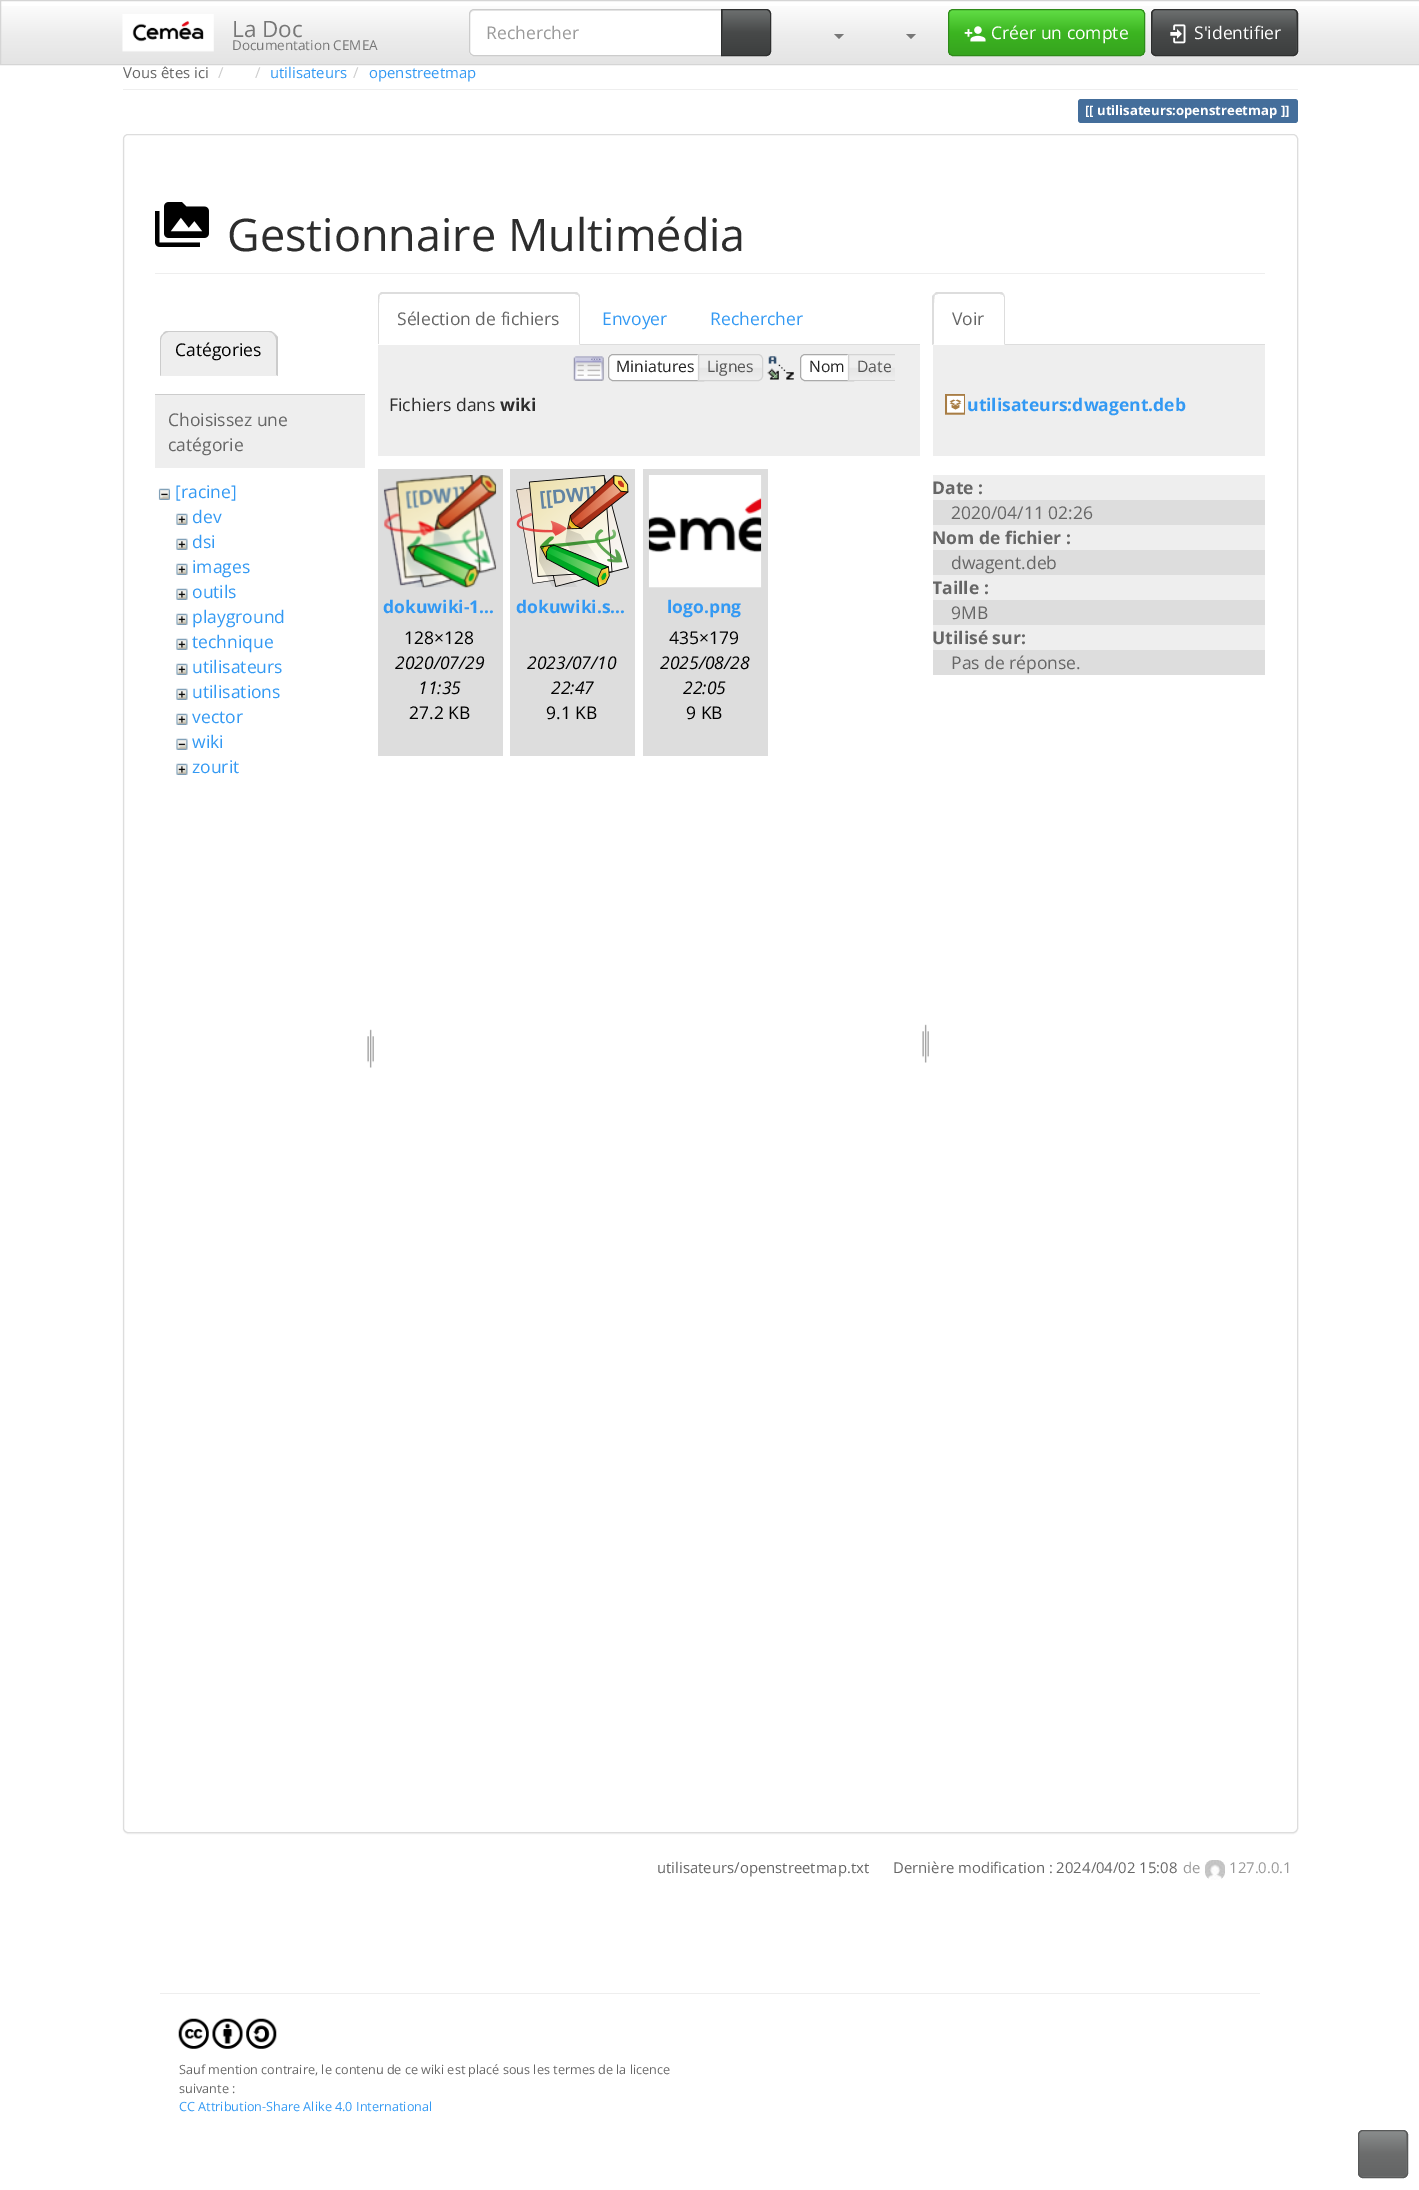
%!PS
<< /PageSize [1419 2190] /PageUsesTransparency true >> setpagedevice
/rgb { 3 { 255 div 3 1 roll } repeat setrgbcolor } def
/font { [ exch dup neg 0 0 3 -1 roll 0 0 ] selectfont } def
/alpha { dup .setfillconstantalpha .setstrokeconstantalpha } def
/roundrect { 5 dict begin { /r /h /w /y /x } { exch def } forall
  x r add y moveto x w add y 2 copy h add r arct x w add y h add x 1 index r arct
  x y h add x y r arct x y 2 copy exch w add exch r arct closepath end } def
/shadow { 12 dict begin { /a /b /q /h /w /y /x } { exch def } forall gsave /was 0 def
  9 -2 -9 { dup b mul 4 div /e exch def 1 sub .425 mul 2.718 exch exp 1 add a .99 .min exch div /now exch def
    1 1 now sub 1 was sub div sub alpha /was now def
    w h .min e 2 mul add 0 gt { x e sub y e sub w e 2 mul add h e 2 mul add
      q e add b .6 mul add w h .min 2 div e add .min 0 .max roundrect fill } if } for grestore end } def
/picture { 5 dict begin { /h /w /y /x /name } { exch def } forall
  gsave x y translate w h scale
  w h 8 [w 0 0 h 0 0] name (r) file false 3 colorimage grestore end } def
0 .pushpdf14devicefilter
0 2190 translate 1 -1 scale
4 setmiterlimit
255 255 255 rgb
0 0 1419 2190 rectfill
gsave 1 6 moveto 1419 6 lineto 1419 64 lineto 1 64 lineto closepath clip newpath
<< /ShadingType 2 /ColorSpace /DeviceRGB /Coords [710 1.2 710 64] /Extend [true true] /Function << /FunctionType 3 /Domain [0 1] /Functions [<< /FunctionType 2 /Domain [0 1] /C0 [1 1 1] /C1 [0.933 0.933 0.933] /N 1 >> << /FunctionType 2 /Domain [0 1] /C0 [0.933 0.933 0.933] /C1 [0.894 0.894 0.894] /N 1 >>] /Bounds [0.5] /Encode [0 1 0 1] >> >> shfill grestore
213 213 213 rgb
0.5 0.5 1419 64 rectstroke
(img/1.rgb) 122 14 92 38 picture
255 255 255 rgb
474 9 moveto 723 9 lineto 723 56 lineto 474 56 lineto 471 56 469 54 469 51 curveto 469 14 lineto 469 11 471 9 474 9 curveto closepath fill
236 236 236 rgb
474 11 moveto 721 11 lineto 721 10 lineto 474 10 lineto 472 10 470 12 470 14 curveto 470 15 lineto 470 13 472 11 474 11 curveto closepath fill
204 204 204 rgb
474 9.5 moveto 722.5 9.5 lineto 722.5 55.5 lineto 474 55.5 lineto 471.5 55.5 469.5 53.5 469.5 51 curveto 469.5 14 lineto 469.5 11.5 471.5 9.5 474 9.5 curveto closepath stroke
71 73 73 rgb
721 9 moveto 766 9 lineto 769 9 771 11 771 14 curveto 771 51 lineto 771 54 769 56 766 56 curveto 721 56 lineto closepath fill
gsave 723 10 moveto 770 10 lineto 770 55 lineto 723 55 lineto closepath clip newpath
<< /ShadingType 2 /ColorSpace /DeviceRGB /Coords [746 10 746 55] /Extend [true true] /Function << /FunctionType 3 /Domain [0 1] /Functions [<< /FunctionType 2 /Domain [0 1] /C0 [0.427 0.439 0.439] /C1 [0.278 0.286 0.286] /N 1 >> << /FunctionType 2 /Domain [0 1] /C0 [0.278 0.286 0.286] /C1 [0.239 0.247 0.247] /N 1 >>] /Bounds [0.5] /Encode [0 1 0 1] >> >> shfill grestore
46 47 47 rgb
721.5 9.5 moveto 766 9.5 lineto 768.5 9.5 770.5 11.5 770.5 14 curveto 770.5 51 lineto 770.5 53.5 768.5 55.5 766 55.5 curveto 721.5 55.5 lineto closepath stroke
119 119 119 rgb
834 34 moveto 844 34 lineto 839 39 lineto closepath fill
906 34 moveto 916 34 lineto 911 39 lineto closepath fill
gsave
948 9 197 47 5 roundrect clip newpath
gsave 949 10 moveto 1144 10 lineto 1144 55 lineto 949 55 lineto closepath clip newpath
<< /ShadingType 2 /ColorSpace /DeviceRGB /Coords [1046 10 1046 55] /Extend [true true] /Function << /FunctionType 3 /Domain [0 1] /Functions [<< /FunctionType 2 /Domain [0 1] /C0 [0.38 0.867 0.271] /C1 [0.235 0.71 0.129] /N 1 >> << /FunctionType 2 /Domain [0 1] /C0 [0.235 0.71 0.129] /C1 [0.212 0.643 0.118] /N 1 >>] /Bounds [0.5] /Encode [0 1 0 1] >> >> shfill grestore
grestore
46 138 25 rgb
948.5 9.5 196 46 4.5 roundrect stroke
(img/2.rgb) 964 26 22 16 picture
71 73 73 rgb
1151 9 147 47 5 roundrect fill
gsave 1153 10 moveto 1296 10 lineto 1296 55 lineto 1153 55 lineto closepath clip newpath
<< /ShadingType 2 /ColorSpace /DeviceRGB /Coords [1224 10 1224 55] /Extend [true true] /Function << /FunctionType 3 /Domain [0 1] /Functions [<< /FunctionType 2 /Domain [0 1] /C0 [0.427 0.439 0.439] /C1 [0.278 0.286 0.286] /N 1 >> << /FunctionType 2 /Domain [0 1] /C0 [0.278 0.286 0.286] /C1 [0.239 0.247 0.247] /N 1 >>] /Bounds [0.5] /Encode [0 1 0 1] >> >> shfill grestore
46 47 47 rgb
1151.5 9.5 146 46 4.5 roundrect stroke
(img/3.rgb) 1170 24 16 20 picture
238 238 238 rgb
123 89 1175 1 rectfill
68 110 155 rgb
1081 99 moveto 1098 99 lineto 1098 123 lineto 1081 123 lineto 1079.5 123 1078 121.5 1078 120 curveto 1078 102 lineto 1078 100.5 1079.5 99 1081 99 curveto closepath fill
1098 99 180 24 rectfill
1278 99 moveto 1295 99 lineto 1296.5 99 1298 100.5 1298 102 curveto 1298 120 lineto 1298 121.5 1296.5 123 1295 123 curveto 1278 123 lineto closepath fill
0 0 0 rgb
123 135 1175 1699 5 0.5 0.05 shadow
255 255 255 rgb
123.5 134.5 1174 1698 4.5 roundrect gsave fill grestore
221 221 221 rgb
stroke
238 238 238 rgb
155 273 1110 1 rectfill
(img/4.rgb) 155 202 54 45 picture
169 331 moveto 269 331 lineto 274 331 278 335 278 340 curveto 278 376 lineto 160 376 lineto 160 340 lineto 160 335 164 331 169 331 curveto closepath fill
204 204 204 rgb
169 332 moveto 167 332 165 333 163 335 curveto 163 334 lineto 163 333 165 331 167 331 curveto 271 331 lineto 275 334 lineto 274 335 lineto 273 333 271 332 269 332 curveto closepath fill
278 376 moveto 276 375 lineto 276 340 lineto 276 338 275 336 274 335 curveto 275 334 lineto 278 337 lineto closepath fill
238 238 238 rgb
277 376 moveto 160 376 lineto 161 375 lineto 276 375 lineto closepath fill
204 204 204 rgb
160 340 moveto 160 376 lineto 161 375 lineto 161 340 lineto 161 338 162 336 163 335 curveto 163 334 lineto 161 335 160 338 160 340 curveto closepath fill
238 238 238 rgb
155 395 210 73 rectfill
204 204 204 rgb
155 394 210 1 rectfill
(img/5.rgb) 158 488 12 12 picture
(img/6.rgb) 176 513 12 12 picture
(img/6.rgb) 176 538 12 12 picture
(img/6.rgb) 176 563 12 12 picture
(img/6.rgb) 176 588 12 12 picture
(img/6.rgb) 176 613 12 12 picture
(img/6.rgb) 176 638 12 12 picture
(img/6.rgb) 176 663 12 12 picture
(img/6.rgb) 176 688 12 12 picture
(img/6.rgb) 176 713 12 12 picture
(img/7.rgb) 176 738 12 12 picture
(img/6.rgb) 176 763 12 12 picture
(img/8.rgb) 367 1029 7 39 picture
221 221 221 rgb
580 344 340 1 rectfill
382 294 moveto 380 295 lineto 379 294 lineto 381 292 lineto 577 292 lineto 579 294 lineto 578 295 lineto 575 294 lineto closepath fill
580 345 moveto 580 298 lineto 580 296 580 295 579 294 curveto 578 295 lineto 579 297 lineto 579 344 lineto closepath fill
378 344 moveto 378 298 lineto 378 297 378 295 379 294 curveto 380 295 lineto 378 297 379 338 379 344 curveto closepath fill
238 238 238 rgb
378 345 542 111 rectfill
(img/9.rgb) 573 356 31 25 picture
255 255 255 rgb
613 354 moveto 704 354 lineto 704 381 lineto 613 381 lineto 610 381 608 379 608 376 curveto 608 359 lineto 608 356 610 354 613 354 curveto closepath fill
(img/10.rgb) 607 354 5 27 picture
170 170 170 rgb
613 354.5 moveto 703.5 354.5 lineto 703.5 380.5 lineto 613 380.5 lineto 610.5 380.5 608.5 378.5 608.5 376 curveto 608.5 359 lineto 608.5 356.5 610.5 354.5 613 354.5 curveto closepath stroke
(img/11.rgb) 697 354 65 27 picture
211 211 211 rgb
698.5 354.5 moveto 758 354.5 lineto 760.5 354.5 762.5 356.5 762.5 359 curveto 762.5 376 lineto 762.5 378.5 760.5 380.5 758 380.5 curveto 698.5 380.5 lineto closepath stroke
(img/12.rgb) 767 356 27 24 picture
255 255 255 rgb
805 354 moveto 854 354 lineto 854 381 lineto 805 381 lineto 802 381 800 379 800 376 curveto 800 359 lineto 800 356 802 354 805 354 curveto closepath fill
(img/13.rgb) 800 354 4 27 picture
170 170 170 rgb
805 354.5 moveto 853.5 354.5 lineto 853.5 380.5 lineto 805 380.5 lineto 802.5 380.5 800.5 378.5 800.5 376 curveto 800.5 359 lineto 800.5 356.5 802.5 354.5 805 354.5 curveto closepath stroke
(img/14.rgb) 847 354 48 27 picture
gsave
564 354 331 27 rectclip
211 211 211 rgb
848.5 354.5 moveto 896 354.5 lineto 898.5 354.5 900.5 356.5 900.5 359 curveto 900.5 376 lineto 900.5 378.5 898.5 380.5 896 380.5 curveto 848.5 380.5 lineto closepath stroke
grestore
221 221 221 rgb
378 469 125 287 rectfill
(img/15.rgb) 383 475 114 113 picture
510 469 125 287 rectfill
(img/16.rgb) 516 475 113 112 picture
643 469 125 287 rectfill
(img/17.rgb) 648 475 114 113 picture
(img/8.rgb) 922 1024 7 39 picture
1005 344 260 1 rectfill
938 294 moveto 935 295 lineto 934 294 lineto 936 292 lineto 1002 292 lineto 1004 294 lineto 1003 295 lineto 1000 294 lineto closepath fill
1005 345 moveto 1005 298 lineto 1005 296 1004 295 1004 294 curveto 1003 295 lineto 1004 297 lineto 1004 344 lineto closepath fill
932 345 moveto 932 296 lineto 934 294 lineto 935 295 lineto 933 297 934 338 934 344 curveto closepath fill
238 238 238 rgb
933 345 332 111 rectfill
(img/18.rgb) 945 394 20 21 picture
[
  [933 475 332 25 238 238 238]
  [933 500 332 25 221 221 221]
  [933 525 332 25 238 238 238]
  [933 550 332 25 221 221 221]
  [933 575 332 25 238 238 238]
  [933 600 332 25 221 221 221]
  [933 625 332 25 238 238 238]
  [933 650 332 25 221 221 221]
] { aload pop rgb rectfill } forall
(img/19.rgb) 1205 1860 20 20 picture
238 238 238 rgb
160 1993 1100 1 rectfill
(img/20.rgb) 178 2018 31 31 picture
(img/21.rgb) 212 2018 31 31 picture
(img/22.rgb) 246 2018 31 31 picture
108 109 109 rgb
1358 2130 50 48 5 roundrect fill
gsave 1359 2131 moveto 1406 2131 lineto 1406 2176 lineto 1359 2176 lineto closepath clip newpath
<< /ShadingType 2 /ColorSpace /DeviceRGB /Coords [1383 2131 1383 2176] /Extend [true true] /Function << /FunctionType 3 /Domain [0 1] /Functions [<< /FunctionType 2 /Domain [0 1] /C0 [0.541 0.553 0.553] /C1 [0.424 0.427 0.427] /N 1 >> << /FunctionType 2 /Domain [0 1] /C0 [0.424 0.427 0.427] /C1 [0.392 0.396 0.396] /N 1 >>] /Bounds [0.5] /Encode [0 1 0 1] >> >> shfill grestore
88 89 89 rgb
1358.5 2130.5 49 47 4.5 roundrect stroke
/OpenSans-Regular 22.5 font
119 119 119 rgb
232 37 moveto (La Doc) show
/OpenSans-Regular 13.5 font
232 50 moveto (Documentation CEMEA) show
/OpenSans-Regular 17.5 font
153 153 153 rgb
486 39 moveto (Rechercher) show
255 255 255 rgb
991 39 moveto (Créer un compte) show
1194 39 moveto (S'identifier) show
/OpenSans-Regular 14.9 font
102 102 102 rgb
123 78 moveto (Vous êtes ici) show
204 204 204 rgb
218 78 moveto (/) show
255 78 moveto (/) show
51 153 243 rgb
270 78 moveto (utilisateurs) show
204 204 204 rgb
353 78 moveto (/) show
51 153 243 rgb
369 78 moveto (openstreetmap) show
/OpenSans-Bold 13.1 font
255 255 255 rgb
1085 115 moveto ([[ utilisateurs:openstreetmap ]]) show
/OpenSans-Regular 45 font
45 45 45 rgb
227 251 moveto (Gestionnaire Multimédia) show
/OpenSans-Regular 17.5 font
0 0 0 rgb
175 356 moveto (Catégories) show
102 102 102 rgb
168 426 moveto (Choisissez une) show
168 451 moveto (catégorie) show
51 153 243 rgb
[
  [([racine]) 175 498]
  [(dev) 192 523]
  [(dsi) 192 548]
  [(images) 192 573]
  [(outils) 192 598]
  [(playground) 192 623]
  [(technique) 192 648]
  [(utilisateurs) 192 673]
  [(utilisations) 192 698]
  [(vector) 192 723]
  [(wiki) 192 748]
  [(zourit) 192 773]
] { aload pop moveto show } forall
102 102 102 rgb
397 325 moveto (Sélection de fichiers) show
51 153 243 rgb
602 325 moveto (Envoyer) show
710 325 moveto (Rechercher) show
/OpenSans-Regular 15.75 font
33 33 33 rgb
616 372 moveto (Miniatures) show
85 85 85 rgb
707 372 moveto (Lignes) show
33 33 33 rgb
809 372 moveto (Nom) show
85 85 85 rgb
857 372 moveto (Date) show
/OpenSans-Regular 17.5 font
45 45 45 rgb
389 411 moveto (Fichiers dans) show
/OpenSans-Bold 17.5 font
500 411 moveto (wiki) show
51 153 243 rgb
383 613 moveto (dokuwiki-1…) show
/OpenSans-Regular 17.5 font
0 0 0 rgb
404 644 moveto (128×128) show
/OpenSans-Italic 17.5 font
395 669 moveto (2020/07/29) show
418 694 moveto (11:35) show
/OpenSans-Regular 17.5 font
409 719 moveto (27.2 KB) show
/OpenSans-Bold 17.5 font
51 153 243 rgb
516 613 moveto (dokuwiki.s…) show
/OpenSans-Italic 17.5 font
0 0 0 rgb
527 669 moveto (2023/07/10) show
551 694 moveto (22:47) show
/OpenSans-Regular 17.5 font
546 719 moveto (9.1 KB) show
/OpenSans-Bold 17.5 font
51 153 243 rgb
667 613 moveto (logo.png) show
/OpenSans-Regular 17.5 font
0 0 0 rgb
669 644 moveto (435×179) show
/OpenSans-Italic 17.5 font
660 669 moveto (2025/08/28) show
683 694 moveto (22:05) show
/OpenSans-Regular 17.5 font
686 719 moveto (9 KB) show
102 102 102 rgb
952 325 moveto (Voir) show
/OpenSans-Bold 17.5 font
51 153 243 rgb
967 411 moveto (utilisateurs:dwagent.deb) show
102 102 102 rgb
932 494 moveto (Date :) show
/OpenSans-Regular 17.5 font
951 519 moveto (2020/04/11 02:26) show
/OpenSans-Bold 17.5 font
932 544 moveto (Nom de fichier :) show
/OpenSans-Regular 17.5 font
951 569 moveto (dwagent.deb) show
gsave
933 469 332 1314 rectclip
/OpenSans-Bold 17.5 font
932 594 moveto (Taille :) show
grestore
951 619 moveto (9MB) show
/OpenSans-Bold 17.5 font
932 644 moveto (Utilisé sur:) show
/OpenSans-Regular 17.5 font
951 669 moveto (Pas de réponse.) show
/OpenSans-Regular 14.9 font
657 1873 moveto (utilisateurs/openstreetmap.txt) show
893 1873 moveto (Dernière modification : 2024/04/02 15:08) show
153 153 153 rgb
1183 1873 moveto (de) show
1229 1873 moveto (127.0.0.1) show
/OpenSans-Regular 12.65 font
102 102 102 rgb
179 2074 moveto (Sauf mention contraire, le contenu de ce wiki est placé sous les termes de la licence) show
179 2093 moveto (suivante :) show
51 153 243 rgb
179 2111 moveto (CC Attribution-Share Alike 4.0 International) show
.poppdf14devicefilter showpage
